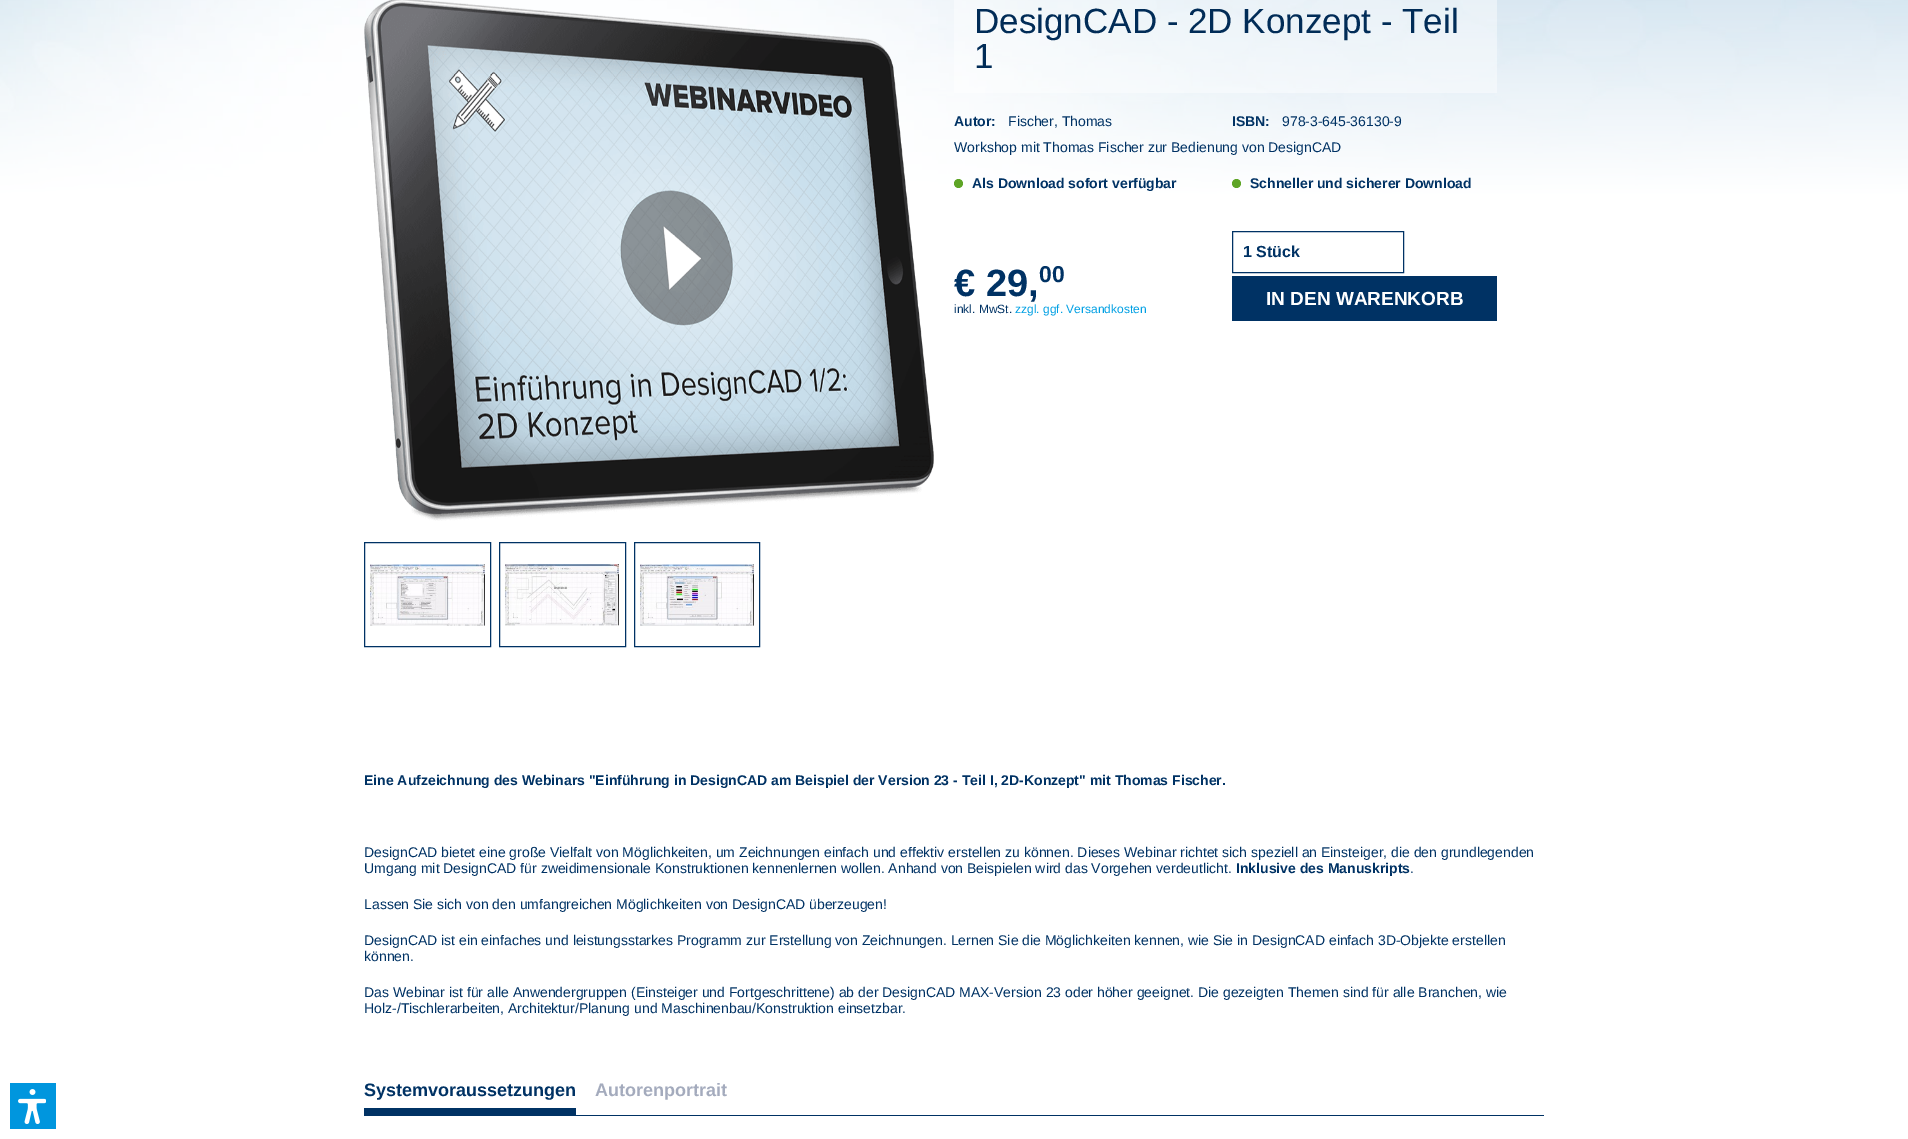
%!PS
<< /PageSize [1908 1139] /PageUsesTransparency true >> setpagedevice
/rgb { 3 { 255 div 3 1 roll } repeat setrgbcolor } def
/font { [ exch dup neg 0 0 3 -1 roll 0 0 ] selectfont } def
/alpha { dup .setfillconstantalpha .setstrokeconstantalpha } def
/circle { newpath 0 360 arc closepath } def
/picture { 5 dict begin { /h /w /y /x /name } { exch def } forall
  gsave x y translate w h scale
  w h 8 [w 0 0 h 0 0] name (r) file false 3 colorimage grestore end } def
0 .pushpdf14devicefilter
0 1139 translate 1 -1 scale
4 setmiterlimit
255 255 255 rgb
0 0 1908 1139 rectfill
(img/1.rgb) 0 0 1908 227 picture
(img/2.rgb) 364 0 570 521 picture
0 50 100 rgb
364.5 542.5 126 104 rectstroke
(img/3.rgb) 370 564 115 62 picture
499.5 542.5 126 104 rectstroke
(img/4.rgb) 505 564 114 62 picture
634.5 542.5 125 104 rectstroke
(img/5.rgb) 640 564 114 62 picture
0.42 alpha
255 255 255 rgb
954 0 543 93 rectfill
1 alpha
94 165 38 rgb
958.5 183.5 4.5 circle fill
1236.5 183.5 4.5 circle fill
0 50 100 rgb
1232.5 231.5 171 41 rectstroke
[
  [1232 276 265 45 0 50 100]
  [576 1115 968 1 0 50 100]
  [364 1108 212 8 0 50 100]
  [10 1083 46 46 0 150 222]
] { aload pop rgb rectfill } forall
(img/6.rgb) 18 1089 28 35 picture
/LiberationSans-Regular 35 font
1 44 87 rgb
974 33 moveto (DesignCAD - 2D Konzept - Teil) show
974 68 moveto (1) show
/LiberationSans-Bold 14 font
0 50 100 rgb
954 126 moveto (Autor:) show
/LiberationSans-Regular 14 font
1008 126 moveto (Fischer, Thomas) show
/LiberationSans-Bold 14 font
1232 126 moveto (ISBN:) show
/LiberationSans-Regular 14 font
1282 126 moveto (978-3-645-36130-9) show
954 152 moveto (Workshop mit Thomas Fischer zur Bedienung von DesignCAD) show
/LiberationSans-Bold 14 font
972 188 moveto (Als Download sofort verfügbar) show
1250 188 moveto (Schneller und sicherer Download) show
/LiberationSans-Bold 38 font
954 296 moveto (€ 29,) show
/LiberationSans-Bold 23 font
1039 282 moveto (00) show
/LiberationSans-Regular 12 font
954 313 moveto (inkl. MwSt.) show
0 159 227 rgb
1015 313 moveto (zzgl. ggf. Versandkosten) show
/LiberationSans-Bold 16 font
0 50 100 rgb
1243 257 moveto (1 Stück) show
/LiberationSans-Bold 19 font
255 255 255 rgb
1266 305 moveto (IN DEN WARENKORB) show
/LiberationSans-Bold 14 font
0 50 100 rgb
364 785 moveto (Eine Aufzeichnung des Webinars "Einführung in DesignCAD am Beispiel der Version 23 - Teil I, 2D-Konzept" mit Thomas Fischer.) show
/LiberationSans-Regular 14 font
364 857 moveto (DesignCAD bietet eine große Vielfalt von Möglichkeiten, um Zeichnungen einfach und effektiv erstellen zu können. Dieses Webinar richtet sich speziell an Einsteiger, die den grundlegenden) show
364 873 moveto (Umgang mit DesignCAD für zweidimensionale Konstruktionen kennenlernen wollen. Anhand von Beispielen wird das Vorgehen verdeutlicht.) show
/LiberationSans-Bold 14 font
1236 873 moveto (Inklusive des Manuskripts) show
/LiberationSans-Regular 14 font
[
  [(.) 1410 873]
  [(Lassen Sie sich von den umfangreichen Möglichkeiten von DesignCAD überzeugen!) 364 909]
  [(DesignCAD ist ein einfaches und leistungsstarkes Programm zur Erstellung von Zeichnungen. Lernen Sie die Möglichkeiten kennen, wie Sie in DesignCAD einfach 3D-Objekte erstellen) 364 945]
  [(können.) 364 961]
  [(Das Webinar ist für alle Anwendergruppen \(Einsteiger und Fortgeschrittene\) ab der DesignCAD MAX-Version 23 oder höher geeignet. Die gezeigten Themen sind für alle Branchen, wie) 364 997]
  [(Holz-/Tischlerarbeiten, Architektur/Planung und Maschinenbau/Konstruktion einsetzbar.) 364 1013]
] { aload pop moveto show } forall
/LiberationSans-Bold 18 font
364 1096 moveto (Systemvoraussetzungen) show
164 171 189 rgb
595 1096 moveto (Autorenportrait) show
.poppdf14devicefilter showpage
